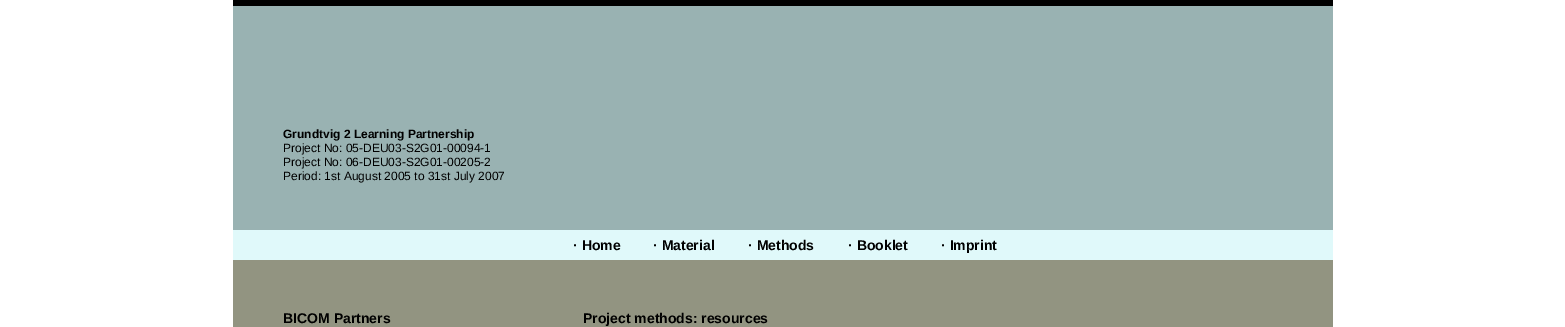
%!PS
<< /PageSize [1565 327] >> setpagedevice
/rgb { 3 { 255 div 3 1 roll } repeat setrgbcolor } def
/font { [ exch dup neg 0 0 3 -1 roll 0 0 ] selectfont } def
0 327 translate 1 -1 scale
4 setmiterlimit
255 255 255 rgb
0 0 1565 327 rectfill
[
  [233 6 1100 224 153 178 178]
  [233 0 1100 6 0 0 0]
  [233 230 1100 30 224 249 250]
  [233 260 1100 67 146 148 129]
] { aload pop rgb rectfill } forall
/LiberationSans-Bold 12 font
0 0 0 rgb
283 138 moveto (Grundtvig 2 Learning Partnership) show
/LiberationSans-Regular 12 font
[
  [(Project No: 05-DEU03-S2G01-00094-1) 283 152]
  [(Project No: 06-DEU03-S2G01-00205-2) 283 166]
  [(Period: 1st August 2005 to 31st July 2007) 283 180]
] { aload pop moveto show } forall
/LiberationSans-Bold 14 font
[
  [(· Home) 573 250]
  [(· Material) 653 250]
  [(· Methods) 748 250]
  [(· Booklet) 848 250]
  [(· Imprint) 941 250]
  [(BICOM Partners) 283 323]
  [(Project methods: resources) 583 323]
] { aload pop moveto show } forall
showpage
